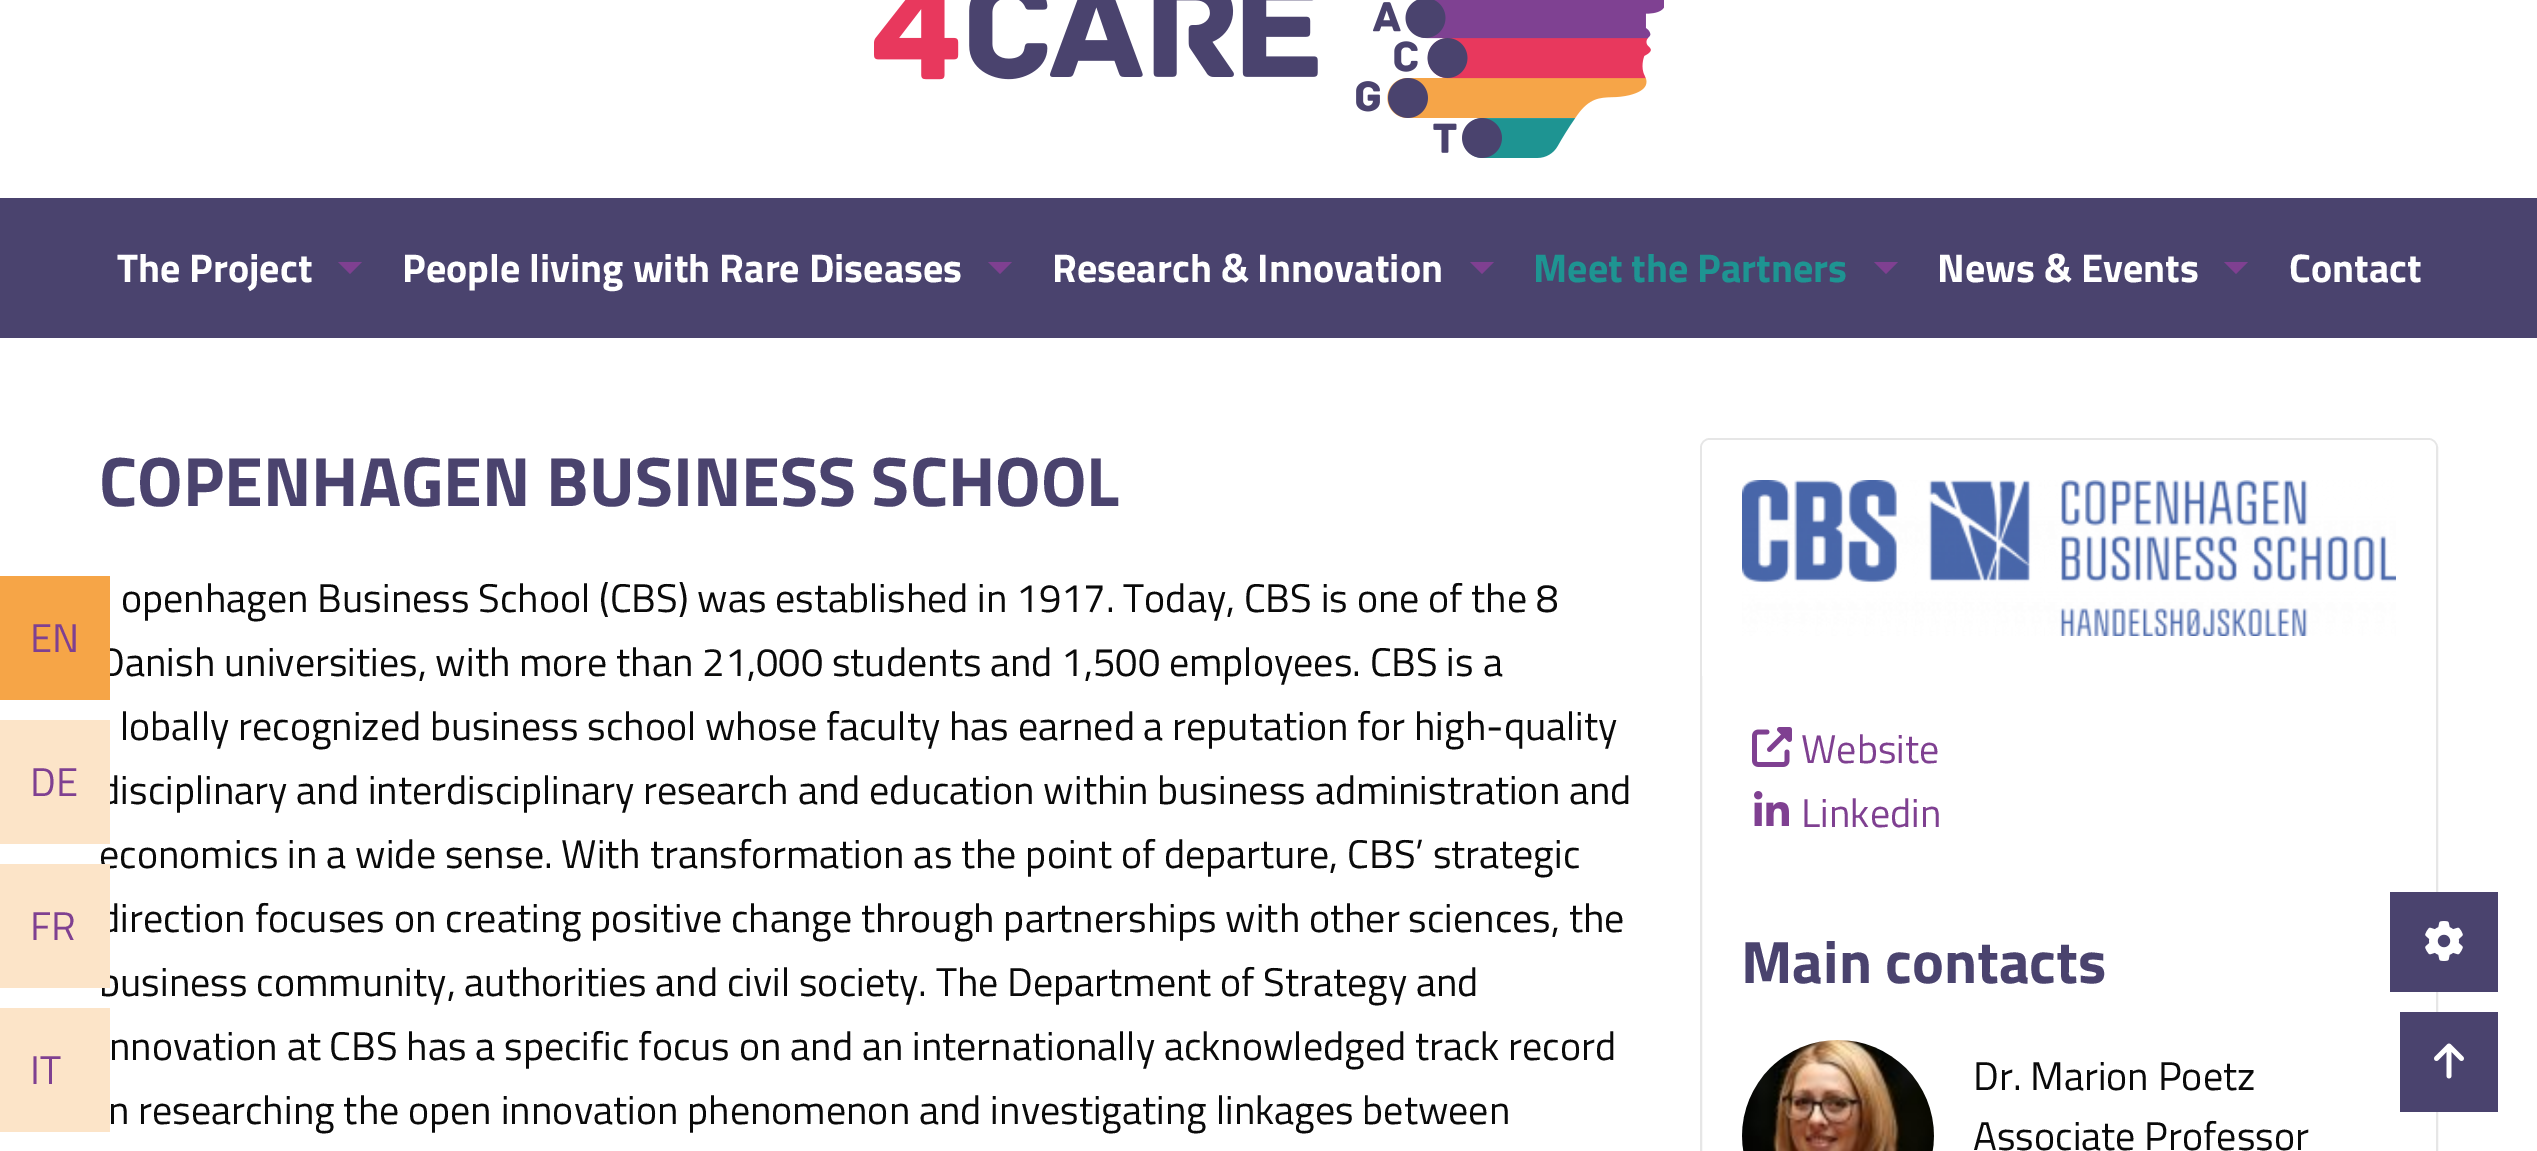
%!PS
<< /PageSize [2537 1151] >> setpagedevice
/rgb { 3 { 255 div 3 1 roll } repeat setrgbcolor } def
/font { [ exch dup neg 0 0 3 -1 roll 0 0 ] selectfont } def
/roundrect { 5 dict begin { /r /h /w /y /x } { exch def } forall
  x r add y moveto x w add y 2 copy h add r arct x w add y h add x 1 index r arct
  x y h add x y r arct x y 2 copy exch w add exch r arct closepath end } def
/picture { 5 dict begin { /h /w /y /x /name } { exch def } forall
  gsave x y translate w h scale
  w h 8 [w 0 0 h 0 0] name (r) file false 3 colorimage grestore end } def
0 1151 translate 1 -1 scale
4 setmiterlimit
255 255 255 rgb
0 0 2537 1151 rectfill
(img/1.rgb) 874 0 790 158 picture
74 67 110 rgb
0 198 2537 140 rectfill
127 64 145 rgb
338 262 moveto 362 262 lineto 350 274 lineto closepath fill
988 262 moveto 1012 262 lineto 1000 274 lineto closepath fill
1470 262 moveto 1494 262 lineto 1482 274 lineto closepath fill
1874 262 moveto 1898 262 lineto 1886 274 lineto closepath fill
2224 262 moveto 2248 262 lineto 2236 274 lineto closepath fill
252 228 200 rgb
0 1008 110 124 rectfill
230 230 230 rgb
2 setlinewidth
1701 439 736 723 9 roundrect stroke
255 255 255 rgb
1710 440 moveto 2428 440 lineto 2432.5 440 2436 443.5 2436 448 curveto 2436 676 lineto 1702 676 lineto 1702 448 lineto 1702 443.5 1705.5 440 1710 440 curveto closepath fill
(img/2.rgb) 1742 480 654 156 picture
(img/3.rgb) 1752 727 40 40 picture
(img/4.rgb) 1754 791 35 35 picture
(img/5.rgb) 1742 1040 192 111 picture
74 67 110 rgb
2390 892 108 100 rectfill
(img/6.rgb) 2425 921 38 40 picture
2400 1012 98 100 rectfill
(img/7.rgb) 2434 1043 30 36 picture
/TitilliumWeb-Bold 40 font
255 255 255 rgb
[
  [(The Project) 117 282]
  [(People living with Rare Diseases) 402 282]
  [(Research & Innovation) 1052 282]
] { aload pop moveto show } forall
30 148 146 rgb
1533 282 moveto (Meet the Partners) show
255 255 255 rgb
1937 282 moveto (News & Events) show
2289 282 moveto (Contact) show
/TitilliumWeb-Regular 40 font
127 64 145 rgb
30 1084 moveto (IT) show
/TitilliumWeb-Bold 70 font
74 67 110 rgb
99 506 moveto (COPENHAGEN BUSINESS SCHOOL) show
/TitilliumWeb-Regular 40 font
10 10 10 rgb
121 612 moveto (openhagen Business School \(CBS\) was established in 1917. Today, CBS is one of the 8) show
99 676 moveto (Danish universities, with more than 21,000 students and 1,500 employees. CBS is a) show
246 165 71 rgb
0 576 110 124 rectfill
127 64 145 rgb
30 652 moveto (EN) show
10 10 10 rgb
[
  [(lobally recognized business school whose faculty has earned a reputation for high-quality) 120 740]
  [(disciplinary and interdisciplinary research and education within business administration and) 99 804]
  [(economics in a wide sense. With transformation as the point of departure, CBS’ strategic) 99 868]
] { aload pop moveto show } forall
252 228 200 rgb
0 720 110 124 rectfill
127 64 145 rgb
30 796 moveto (DE) show
10 10 10 rgb
99 932 moveto (direction focuses on creating positive change through partnerships with other sciences, the) show
99 996 moveto (business community, authorities and civil society. The Department of Strategy and) show
252 228 200 rgb
0 864 110 124 rectfill
127 64 145 rgb
30 940 moveto (FR) show
10 10 10 rgb
109 1060 moveto (nnovation at CBS has a specific focus on and an internationally acknowledged track record) show
108 1124 moveto (n researching the open innovation phenomenon and investigating linkages between) show
127 64 145 rgb
1801 763 moveto (Website) show
1801 827 moveto (Linkedin) show
/TitilliumWeb-Bold 60 font
74 67 110 rgb
1741 983 moveto (Main contacts) show
/TitilliumWeb-Regular 40 font
10 10 10 rgb
1973 1090 moveto (Dr. Marion Poetz) show
1973 1150 moveto (Associate Professor) show
showpage
